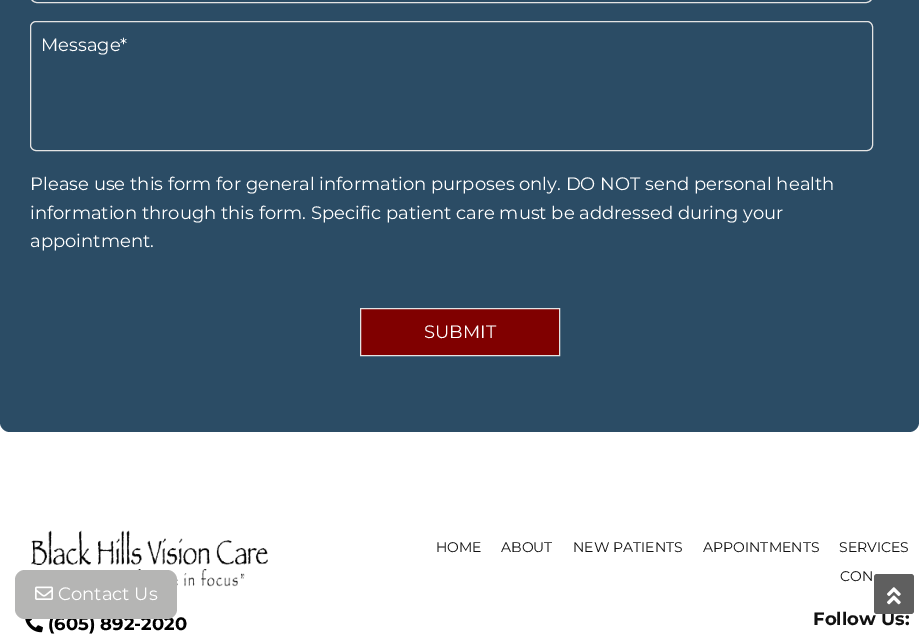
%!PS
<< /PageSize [919 634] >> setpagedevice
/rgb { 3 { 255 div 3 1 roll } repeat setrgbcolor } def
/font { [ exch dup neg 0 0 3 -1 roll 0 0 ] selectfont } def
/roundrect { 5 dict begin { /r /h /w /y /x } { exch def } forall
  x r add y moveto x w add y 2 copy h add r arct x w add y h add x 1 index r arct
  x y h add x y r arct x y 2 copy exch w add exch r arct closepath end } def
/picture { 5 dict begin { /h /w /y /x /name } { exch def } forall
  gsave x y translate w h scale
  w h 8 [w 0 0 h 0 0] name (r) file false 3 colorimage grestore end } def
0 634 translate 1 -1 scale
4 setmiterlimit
255 255 255 rgb
0 0 919 634 rectfill
43 76 101 rgb
0 -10 919 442 10 roundrect fill
228 228 228 rgb
30.5 -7.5 842 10 6.5 roundrect stroke
30.5 21.5 842 129 5.5 roundrect stroke
128 0 0 rgb
360.5 308.5 moveto 559.5 308.5 lineto 559.5 355.5 lineto 360.5 355.5 lineto closepath gsave fill grestore
228 228 228 rgb
stroke
(img/1.rgb) 31 530 237 57 picture
(img/2.rgb) 25 619 18 14 picture
/Montserrat-Regular 18 font
255 255 255 rgb
[
  [(Message*) 41 51]
  [(Please use this form for general information purposes only. DO NOT send personal health) 30 190]
  [(information through this form. Specific patient care must be addressed during your) 30 219]
  [(appointment.) 30 247]
  [(SUBMIT) 424 338]
] { aload pop moveto show } forall
/Montserrat-Bold 18 font
0 0 0 rgb
48 630 moveto (\(605\) 892-2020) show
/Montserrat-Regular 14 font
17 17 17 rgb
[
  [(HOME) 436 552]
  [(ABOUT) 501 552]
  [(NEW PATIENTS) 573 552]
  [(APPOINTMENTS) 703 552]
  [(SERVICES) 839 552]
  [(CON) 840 581]
] { aload pop moveto show } forall
/Montserrat-Bold 18 font
813 625 moveto (Follow Us:) show
181 181 180 rgb
15 570 162 49 10 roundrect fill
(img/3.rgb) 35 586 18 14 picture
/Montserrat-Regular 18 font
255 255 255 rgb
58 600 moveto (Contact Us) show
95 95 95 rgb
874 574 40 40 3 roundrect fill
(img/4.rgb) 887 587 14 18 picture
showpage
